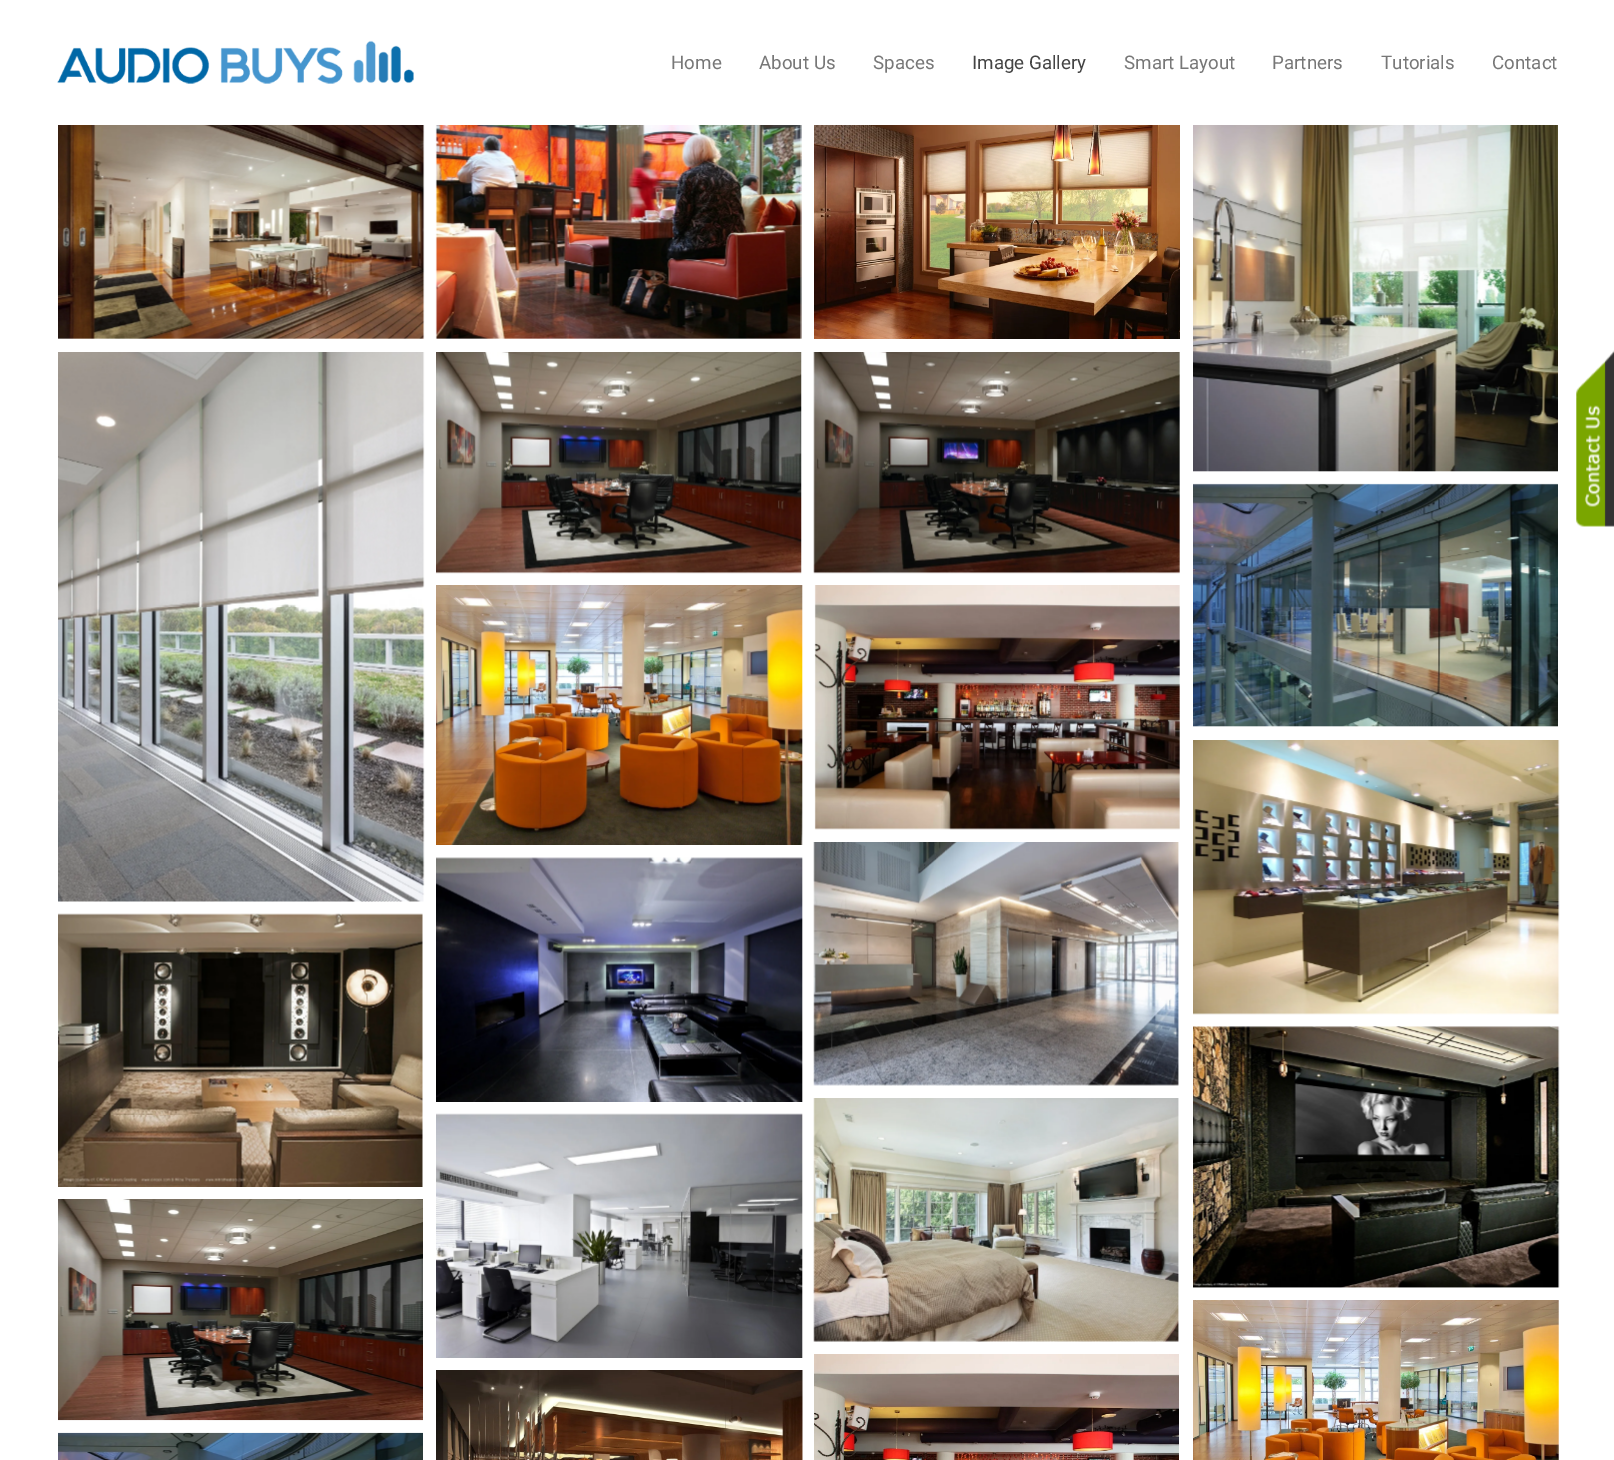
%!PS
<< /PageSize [1614 1460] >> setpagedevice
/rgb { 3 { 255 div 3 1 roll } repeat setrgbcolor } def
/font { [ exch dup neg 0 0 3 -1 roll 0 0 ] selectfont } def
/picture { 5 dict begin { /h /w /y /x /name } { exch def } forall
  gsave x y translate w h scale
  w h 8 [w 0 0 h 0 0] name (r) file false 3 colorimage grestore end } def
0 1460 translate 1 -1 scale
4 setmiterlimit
255 255 255 rgb
0 0 1614 1460 rectfill
(img/1.rgb) 57 40 357 44 picture
(img/2.rgb) 58 125 367 214 picture
(img/3.rgb) 435 125 367 214 picture
(img/4.rgb) 814 125 366 214 picture
(img/5.rgb) 1193 125 365 347 picture
(img/6.rgb) 58 352 367 550 picture
(img/7.rgb) 436 352 366 222 picture
(img/8.rgb) 813 352 367 222 picture
(img/9.rgb) 1193 483 365 244 picture
(img/10.rgb) 436 585 367 260 picture
(img/11.rgb) 814 585 366 245 picture
(img/12.rgb) 58 913 365 274 picture
(img/13.rgb) 436 857 367 245 picture
(img/14.rgb) 813 842 366 244 picture
(img/15.rgb) 1193 740 367 275 picture
(img/16.rgb) 58 1199 365 222 picture
(img/17.rgb) 436 1113 367 245 picture
(img/18.rgb) 813 1098 366 244 picture
(img/19.rgb) 1193 1026 367 262 picture
(img/20.rgb) 58 1432 365 28 picture
(img/21.rgb) 436 1370 367 90 picture
(img/22.rgb) 814 1354 365 106 picture
(img/23.rgb) 1193 1300 366 160 picture
(img/24.rgb) 1576 350 38 177 picture
/Roboto-Regular 18.75 font
119 119 119 rgb
[
  [(Home) 671 69]
  [(About Us) 759 69]
  [(Spaces) 873 69]
] { aload pop moveto show } forall
68 68 68 rgb
972 69 moveto (Image Gallery) show
119 119 119 rgb
[
  [(Smart Layout) 1124 69]
  [(Partners) 1272 69]
  [(Tutorials) 1381 69]
  [(Contact) 1492 69]
] { aload pop moveto show } forall
showpage
